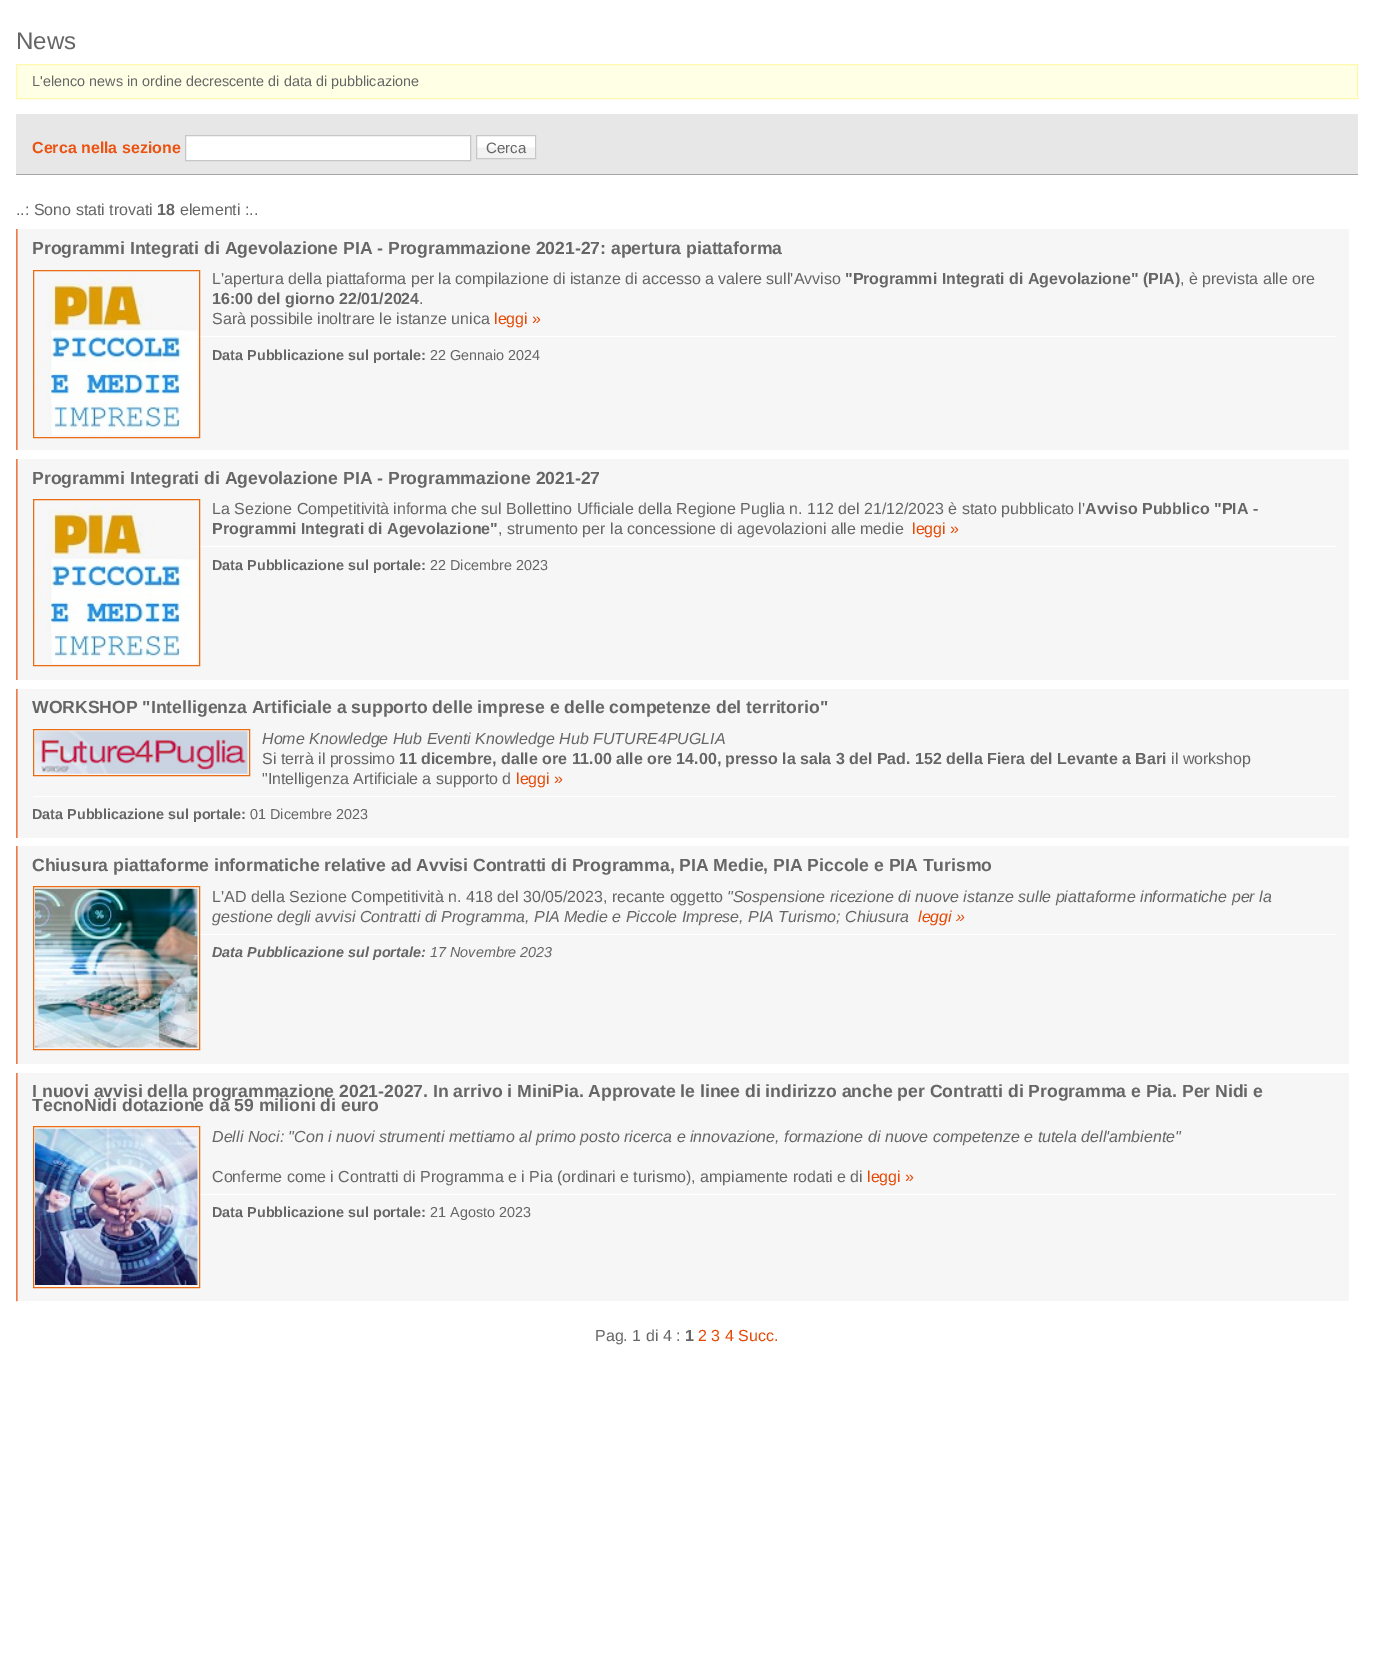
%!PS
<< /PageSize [1373 1653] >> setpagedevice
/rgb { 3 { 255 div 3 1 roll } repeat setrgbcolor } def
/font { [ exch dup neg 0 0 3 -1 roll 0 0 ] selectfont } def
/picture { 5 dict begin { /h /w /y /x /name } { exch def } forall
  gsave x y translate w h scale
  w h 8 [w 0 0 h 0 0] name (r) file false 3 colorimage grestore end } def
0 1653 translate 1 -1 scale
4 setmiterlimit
255 255 255 rgb
0 0 1373 1653 rectfill
255 255 230 rgb
16.5 64.5 moveto 1357.5 64.5 lineto 1357.5 98.5 lineto 16.5 98.5 lineto closepath gsave fill grestore
255 248 175 rgb
stroke
231 231 231 rgb
16 114 1342 60 rectfill
166 166 166 rgb
16 174 1342 1 rectfill
255 255 255 rgb
185.5 135.5 moveto 470.5 135.5 lineto 470.5 160.5 lineto 185.5 160.5 lineto closepath gsave fill grestore
199 199 199 rgb
stroke
(img/1.rgb) 477 136 60 23 picture
476.5 135.5 59 23 rectstroke
246 246 246 rgb
16 229 1333 221 rectfill
(img/2.rgb) 16 229 2 221 picture
255 255 255 rgb
33 336 1303 1 rectfill
236 108 19 rgb
33.5 270.5 166 167 rectstroke
(img/3.rgb) 35 272 163 163 picture
246 246 246 rgb
16 459 1333 221 rectfill
(img/2.rgb) 16 459 2 221 picture
255 255 255 rgb
33 546 1303 1 rectfill
236 108 19 rgb
33.5 499.5 166 166 rectstroke
(img/4.rgb) 35 501 163 163 picture
246 246 246 rgb
16 689 1333 149 rectfill
(img/5.rgb) 16 689 2 149 picture
236 108 19 rgb
33.5 729.5 216 46 rectstroke
(img/6.rgb) 35 731 213 43 picture
255 255 255 rgb
33 796 1303 1 rectfill
246 246 246 rgb
16 846 1333 218 rectfill
(img/7.rgb) 16 846 2 218 picture
255 255 255 rgb
33 934 1303 1 rectfill
236 108 19 rgb
33.5 886.5 166 163 rectstroke
(img/8.rgb) 35 888 163 160 picture
246 246 246 rgb
16 1073 1333 228 rectfill
(img/9.rgb) 16 1073 2 229 picture
255 255 255 rgb
33 1194 1303 1 rectfill
236 108 19 rgb
33.5 1126.5 166 161 rectstroke
(img/10.rgb) 35 1128 163 157 picture
/LiberationSans-Regular 24 font
102 102 102 rgb
16 49 moveto (News) show
/LiberationSans-Regular 14.4 font
32 86 moveto (L'elenco news in ordine decrescente di data di pubblicazione) show
/LiberationSans-Bold 16 font
236 82 16 rgb
32 153 moveto (Cerca nella sezione) show
/LiberationSans-Regular 15 font
102 102 102 rgb
486 153 moveto (Cerca) show
/LiberationSans-Regular 16 font
16 215 moveto (..: Sono stati trovati) show
/LiberationSans-Bold 16 font
157 215 moveto (18) show
/LiberationSans-Regular 16 font
180 215 moveto (elementi :..) show
/LiberationSans-Bold 17.6 font
32 254 moveto (Programmi Integrati di Agevolazione PIA - Programmazione 2021-27: apertura piattaforma) show
/LiberationSans-Regular 16 font
212 284 moveto (L'apertura della piattaforma per la compilazione di istanze di accesso a valere sull'Avviso) show
/LiberationSans-Bold 16 font
845 284 moveto ("Programmi Integrati di Agevolazione" \(PIA\)) show
/LiberationSans-Regular 16 font
1180 284 moveto (, è prevista alle ore) show
/LiberationSans-Bold 16 font
212 304 moveto (16:00 del giorno 22/01/2024) show
/LiberationSans-Regular 16 font
419 304 moveto (.) show
212 324 moveto (Sarà possibile inoltrare le istanze unica) show
228 73 6 rgb
494 324 moveto (leggi ») show
/LiberationSans-Bold 14.4 font
102 102 102 rgb
212 360 moveto (Data Pubblicazione sul portale:) show
/LiberationSans-Regular 14.4 font
430 360 moveto (22 Gennaio 2024) show
/LiberationSans-Bold 17.6 font
32 484 moveto (Programmi Integrati di Agevolazione PIA - Programmazione 2021-27) show
/LiberationSans-Regular 16 font
212 514 moveto (La Sezione Competitività informa che sul Bollettino Ufficiale della Regione Puglia n. 112 del 21/12/2023 è stato pubblicato l') show
/LiberationSans-Bold 16 font
1085 514 moveto (Avviso Pubblico "PIA -) show
212 534 moveto (Programmi Integrati di Agevolazione") show
/LiberationSans-Regular 16 font
498 534 moveto (, strumento per la concessione di agevolazioni alle medie) show
228 73 6 rgb
912 534 moveto (leggi ») show
/LiberationSans-Bold 14.4 font
102 102 102 rgb
212 570 moveto (Data Pubblicazione sul portale:) show
/LiberationSans-Regular 14.4 font
430 570 moveto (22 Dicembre 2023) show
/LiberationSans-Bold 17.6 font
32 713 moveto (WORKSHOP "Intelligenza Artificiale a supporto delle imprese e delle competenze del territorio") show
/LiberationSans-Italic 16 font
262 744 moveto (Home Knowledge Hub Eventi Knowledge Hub FUTURE4PUGLIA) show
/LiberationSans-Regular 16 font
262 764 moveto (Si terrà il prossimo) show
/LiberationSans-Bold 16 font
399 764 moveto (11 dicembre, dalle ore 11.00 alle ore 14.00, presso la sala 3 del Pad. 152 della Fiera del Levante a Bari) show
/LiberationSans-Regular 16 font
1171 764 moveto (il workshop) show
262 784 moveto ("Intelligenza Artificiale a supporto d) show
228 73 6 rgb
516 784 moveto (leggi ») show
/LiberationSans-Bold 14.4 font
102 102 102 rgb
32 819 moveto (Data Pubblicazione sul portale:) show
/LiberationSans-Regular 14.4 font
250 819 moveto (01 Dicembre 2023) show
/LiberationSans-Bold 17.6 font
32 871 moveto (Chiusura piattaforme informatiche relative ad Avvisi Contratti di Programma, PIA Medie, PIA Piccole e PIA Turismo) show
/LiberationSans-Italic 16 font
727 902 moveto ("Sospensione ricezione di nuove istanze sulle piattaforme informatiche per la) show
212 922 moveto (gestione degli avvisi Contratti di Programma, PIA Medie e Piccole Imprese, PIA Turismo; Chiusura) show
228 73 6 rgb
918 922 moveto (leggi ») show
/LiberationSans-BoldItalic 14.4 font
102 102 102 rgb
212 957 moveto (Data Pubblicazione sul portale:) show
/LiberationSans-Italic 14.4 font
430 957 moveto (17 Novembre 2023) show
/LiberationSans-Regular 16 font
212 902 moveto (L'AD della Sezione Competitività n. 418 del 30/05/2023, recante oggetto) show
/LiberationSans-Bold 17.6 font
32 1097 moveto (I nuovi avvisi della programmazione 2021-2027. In arrivo i MiniPia. Approvate le linee di indirizzo anche per Contratti di Programma e Pia. Per Nidi e) show
32 1111 moveto (TecnoNidi dotazione da 59 milioni di euro) show
/LiberationSans-Italic 16 font
212 1142 moveto (Delli Noci: "Con i nuovi strumenti mettiamo al primo posto ricerca e innovazione, formazione di nuove competenze e tutela dell'ambiente") show
/LiberationSans-Regular 16 font
212 1182 moveto (Conferme come i Contratti di Programma e i Pia \(ordinari e turismo\), ampiamente rodati e di) show
228 73 6 rgb
867 1182 moveto (leggi ») show
/LiberationSans-Bold 14.4 font
102 102 102 rgb
212 1217 moveto (Data Pubblicazione sul portale:) show
/LiberationSans-Regular 14.4 font
430 1217 moveto (21 Agosto 2023) show
/LiberationSans-Regular 16 font
595 1341 moveto (Pag. 1 di 4 :) show
/LiberationSans-Bold 16 font
685 1341 moveto (1) show
/LiberationSans-Regular 16 font
228 73 6 rgb
698 1341 moveto (2 3 4 Succ.) show
showpage
